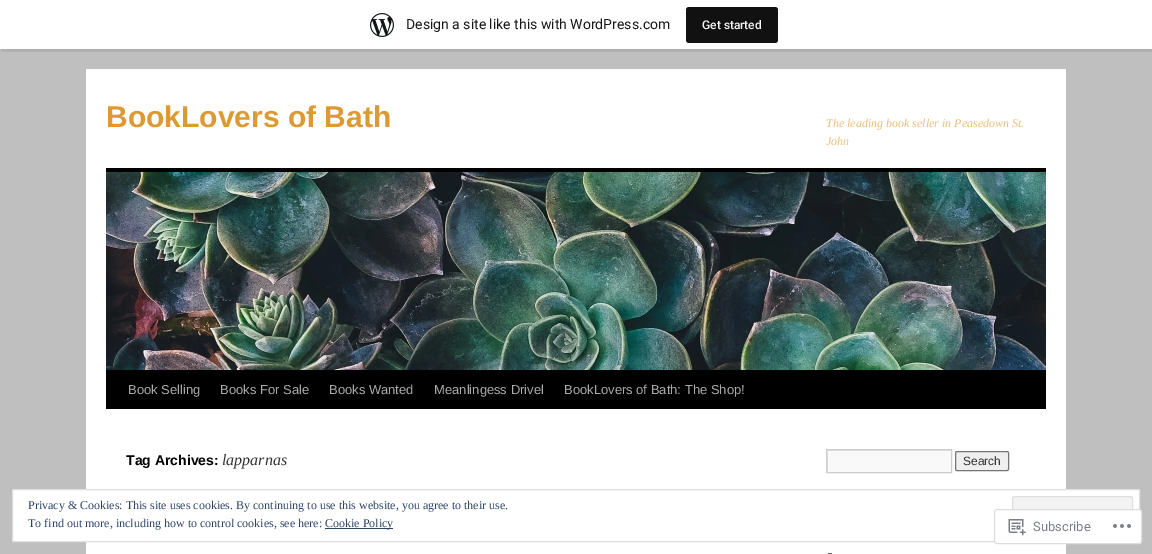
%!PS
<< /PageSize [1152 554] /PageUsesTransparency true >> setpagedevice
/rgb { 3 { 255 div 3 1 roll } repeat setrgbcolor } def
/font { [ exch dup neg 0 0 3 -1 roll 0 0 ] selectfont } def
/alpha { dup .setfillconstantalpha .setstrokeconstantalpha } def
/roundrect { 5 dict begin { /r /h /w /y /x } { exch def } forall
  x r add y moveto x w add y 2 copy h add r arct x w add y h add x 1 index r arct
  x y h add x y r arct x y 2 copy exch w add exch r arct closepath end } def
/picture { 5 dict begin { /h /w /y /x /name } { exch def } forall
  gsave x y translate w h scale
  w h 8 [w 0 0 h 0 0] name (r) file false 3 colorimage grestore end } def
0 .pushpdf14devicefilter
0 554 translate 1 -1 scale
4 setmiterlimit
191 191 191 rgb
0 0 1152 554 rectfill
0.08 alpha
0 0 0 rgb
1 49 moveto 1 52 lineto 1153 52 lineto 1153 3 lineto 1152 3 lineto 1152 49 lineto closepath fill
1 alpha
255 255 255 rgb
0 0 1152 49 rectfill
(img/1.rgb) 370 13 24 24 picture
17 17 17 rgb
686 7 92 36 3 roundrect fill
[
  [86 69 980 485 255 255 255]
  [106 168 940 4 0 0 0]
  [106 370 940 39 0 0 0]
] { aload pop rgb rectfill } forall
(img/2.rgb) 106 172 940 198 picture
249 249 249 rgb
828 451 123 21 rectfill
gsave
827 450 124 22 rectclip
224 224 224 rgb
728 351 moveto 1050 351 lineto 1050 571 lineto 728 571 lineto closepath 828 451 moveto 952 451 lineto 952 473 lineto 828 473 lineto closepath eofill
grestore
204 204 204 rgb
826.5 449.5 125 23 rectstroke
239 239 239 rgb
955.5 451.5 53 19 1.5 roundrect gsave fill grestore
118 118 118 rgb
stroke
102 102 102 rgb
828 553 4 1 rectfill
255 255 255 rgb
12.5 489.5 moveto 1139.5 489.5 lineto 1139.5 541.5 lineto 12.5 541.5 lineto closepath gsave fill grestore
222 222 222 rgb
stroke
243 243 243 rgb
1012.5 496.5 120 38 2.5 roundrect gsave fill grestore
222 222 222 rgb
stroke
46 68 103 rgb
325 528 68 1 rectfill
0.98 alpha
255 255 255 rgb
994 509 148 35 3 roundrect fill
220 220 222 rgb
994.5 509.5 147 34 2.5 roundrect stroke
1 alpha
(img/3.rgb) 1008 519 18 17 picture
(img/4.rgb) 1113 524 18 4 picture
/Roboto-Regular 14 font
23 23 23 rgb
406 29 moveto (Design a site like this with WordPress.com) show
/Roboto-Medium 12 font
246 247 247 rgb
702 29 moveto (Get started) show
/LiberationSans-Bold 30 font
221 153 51 rgb
106 127 moveto (BookLovers of Bath) show
/LiberationSerif-Italic 12 font
233 189 122 rgb
826 127 moveto (The leading book seller in Peasedown St.) show
826 145 moveto (John) show
/LiberationSans-Regular 13 font
170 170 170 rgb
[
  [(Book Selling) 128 394]
  [(Books For Sale) 220 394]
  [(Books Wanted) 329 394]
  [(Meanlingess Drivel) 434 394]
  [(BookLovers of Bath: The Shop!) 564 394]
] { aload pop moveto show } forall
/LiberationSans-Bold 14 font
0 0 0 rgb
126 465 moveto (Tag Archives:) show
/LiberationSerif-Italic 16 font
51 51 51 rgb
222 465 moveto (lapparnas) show
/LiberationSans-Regular 12 font
963 465 moveto (Search) show
/LiberationSerif-Regular 12 font
46 68 103 rgb
[
  [(Privacy & Cookies: This site uses cookies. By continuing to use this website, you agree to their use.) 28 509]
  [(To find out more, including how to control cookies, see here:) 28 527]
  [(Cookie Policy) 325 527]
] { aload pop moveto show } forall
/Roboto-Regular 13 font
122 126 132 rgb
1033 531 moveto (Subscribe) show
.poppdf14devicefilter showpage
